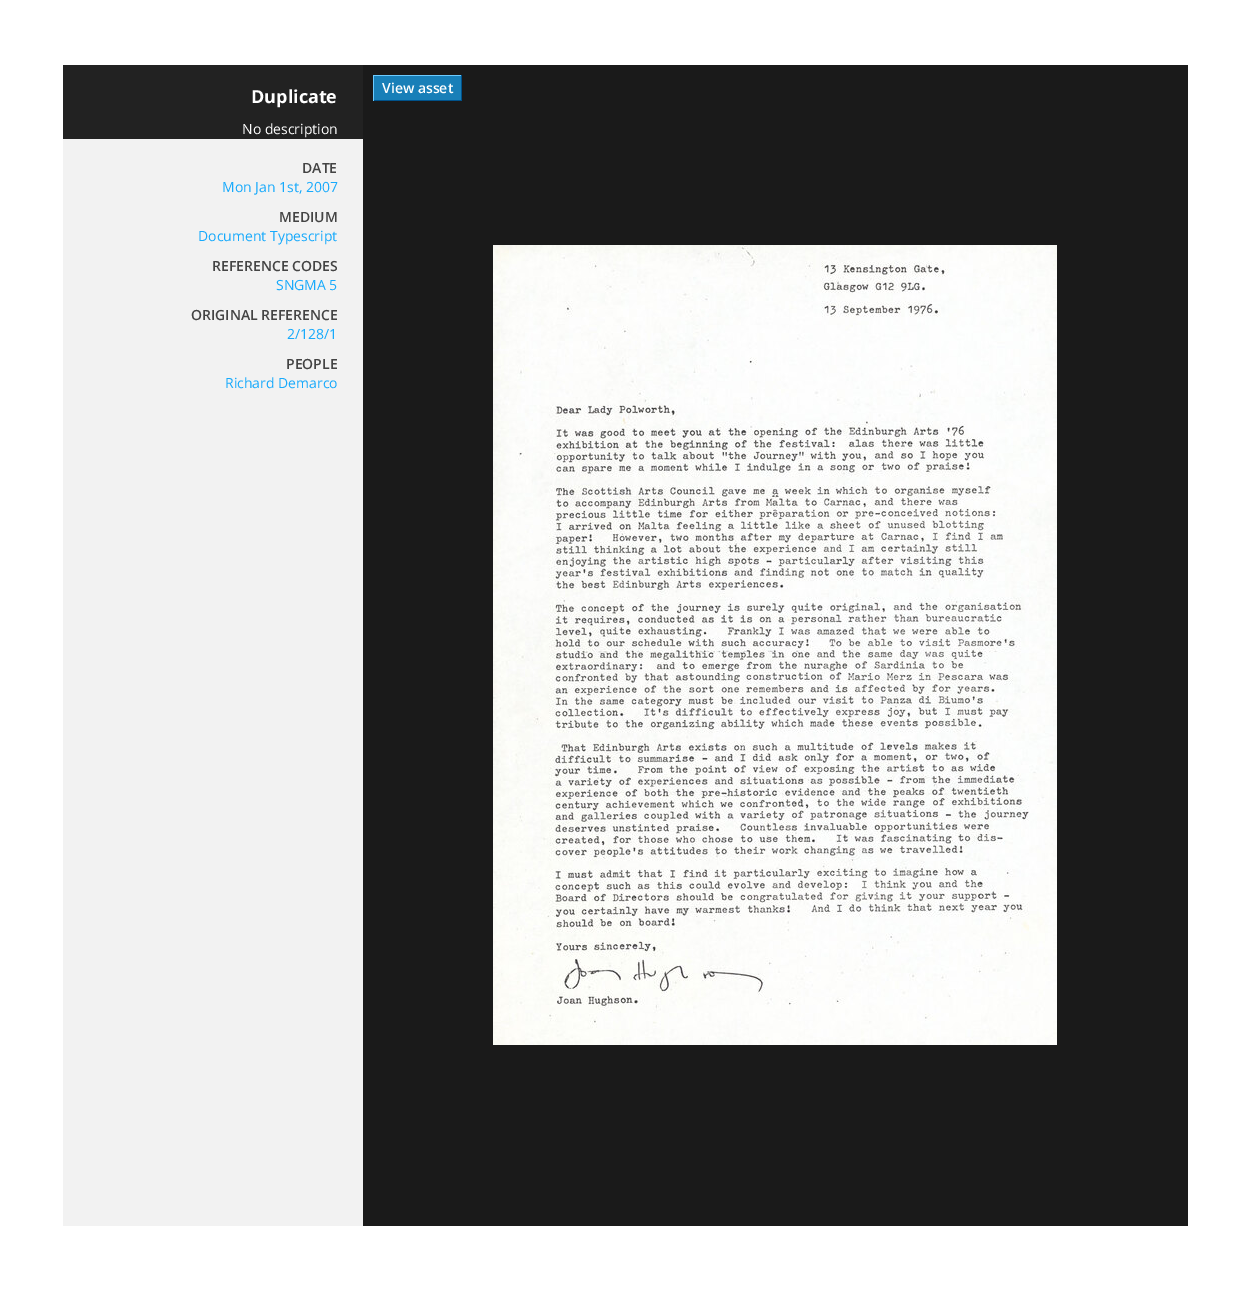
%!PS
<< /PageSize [1250 1290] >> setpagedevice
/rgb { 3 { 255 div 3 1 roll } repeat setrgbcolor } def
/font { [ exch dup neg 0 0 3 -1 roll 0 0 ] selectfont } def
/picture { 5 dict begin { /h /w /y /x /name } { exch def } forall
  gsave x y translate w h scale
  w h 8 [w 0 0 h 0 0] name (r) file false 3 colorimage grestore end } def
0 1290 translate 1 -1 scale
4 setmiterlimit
255 255 255 rgb
0 0 1250 1290 rectfill
[
  [63 139 300 1087 242 242 242]
  [63 65 300 74 34 34 34]
  [363 65 825 1161 26 26 26]
  [374 76 87 24 24 127 184]
  [373 75 89 1 109 203 255]
  [461 75 1 26 0 82 139]
  [373 100 89 1 0 82 139]
  [373 75 1 26 109 203 255]
] { aload pop rgb rectfill } forall
(img/1.rgb) 493 245 564 800 picture
/OpenSans-Bold 18 font
255 255 255 rgb
251 103 moveto (Duplicate) show
/OpenSans-Regular 14 font
242 134 moveto (No description) show
/OpenSans-SemiBold 14 font
68 68 68 rgb
302 173 moveto (DATE) show
/OpenSans-Regular 14 font
23 170 252 rgb
222 192 moveto (Mon Jan 1st, 2007) show
/OpenSans-SemiBold 14 font
68 68 68 rgb
279 222 moveto (MEDIUM) show
/OpenSans-Regular 14 font
23 170 252 rgb
198 241 moveto (Document Typescript) show
/OpenSans-SemiBold 14 font
68 68 68 rgb
212 271 moveto (REFERENCE CODES) show
/OpenSans-Regular 14 font
23 170 252 rgb
276 290 moveto (SNGMA 5) show
/OpenSans-SemiBold 14 font
68 68 68 rgb
191 320 moveto (ORIGINAL REFERENCE) show
/OpenSans-Regular 14 font
23 170 252 rgb
287 339 moveto (2/128/1) show
/OpenSans-SemiBold 14 font
68 68 68 rgb
286 369 moveto (PEOPLE) show
/OpenSans-Regular 14 font
23 170 252 rgb
225 388 moveto (Richard Demarco) show
/OpenSans-SemiBold 14 font
255 255 255 rgb
382 93 moveto (View asset) show
showpage
